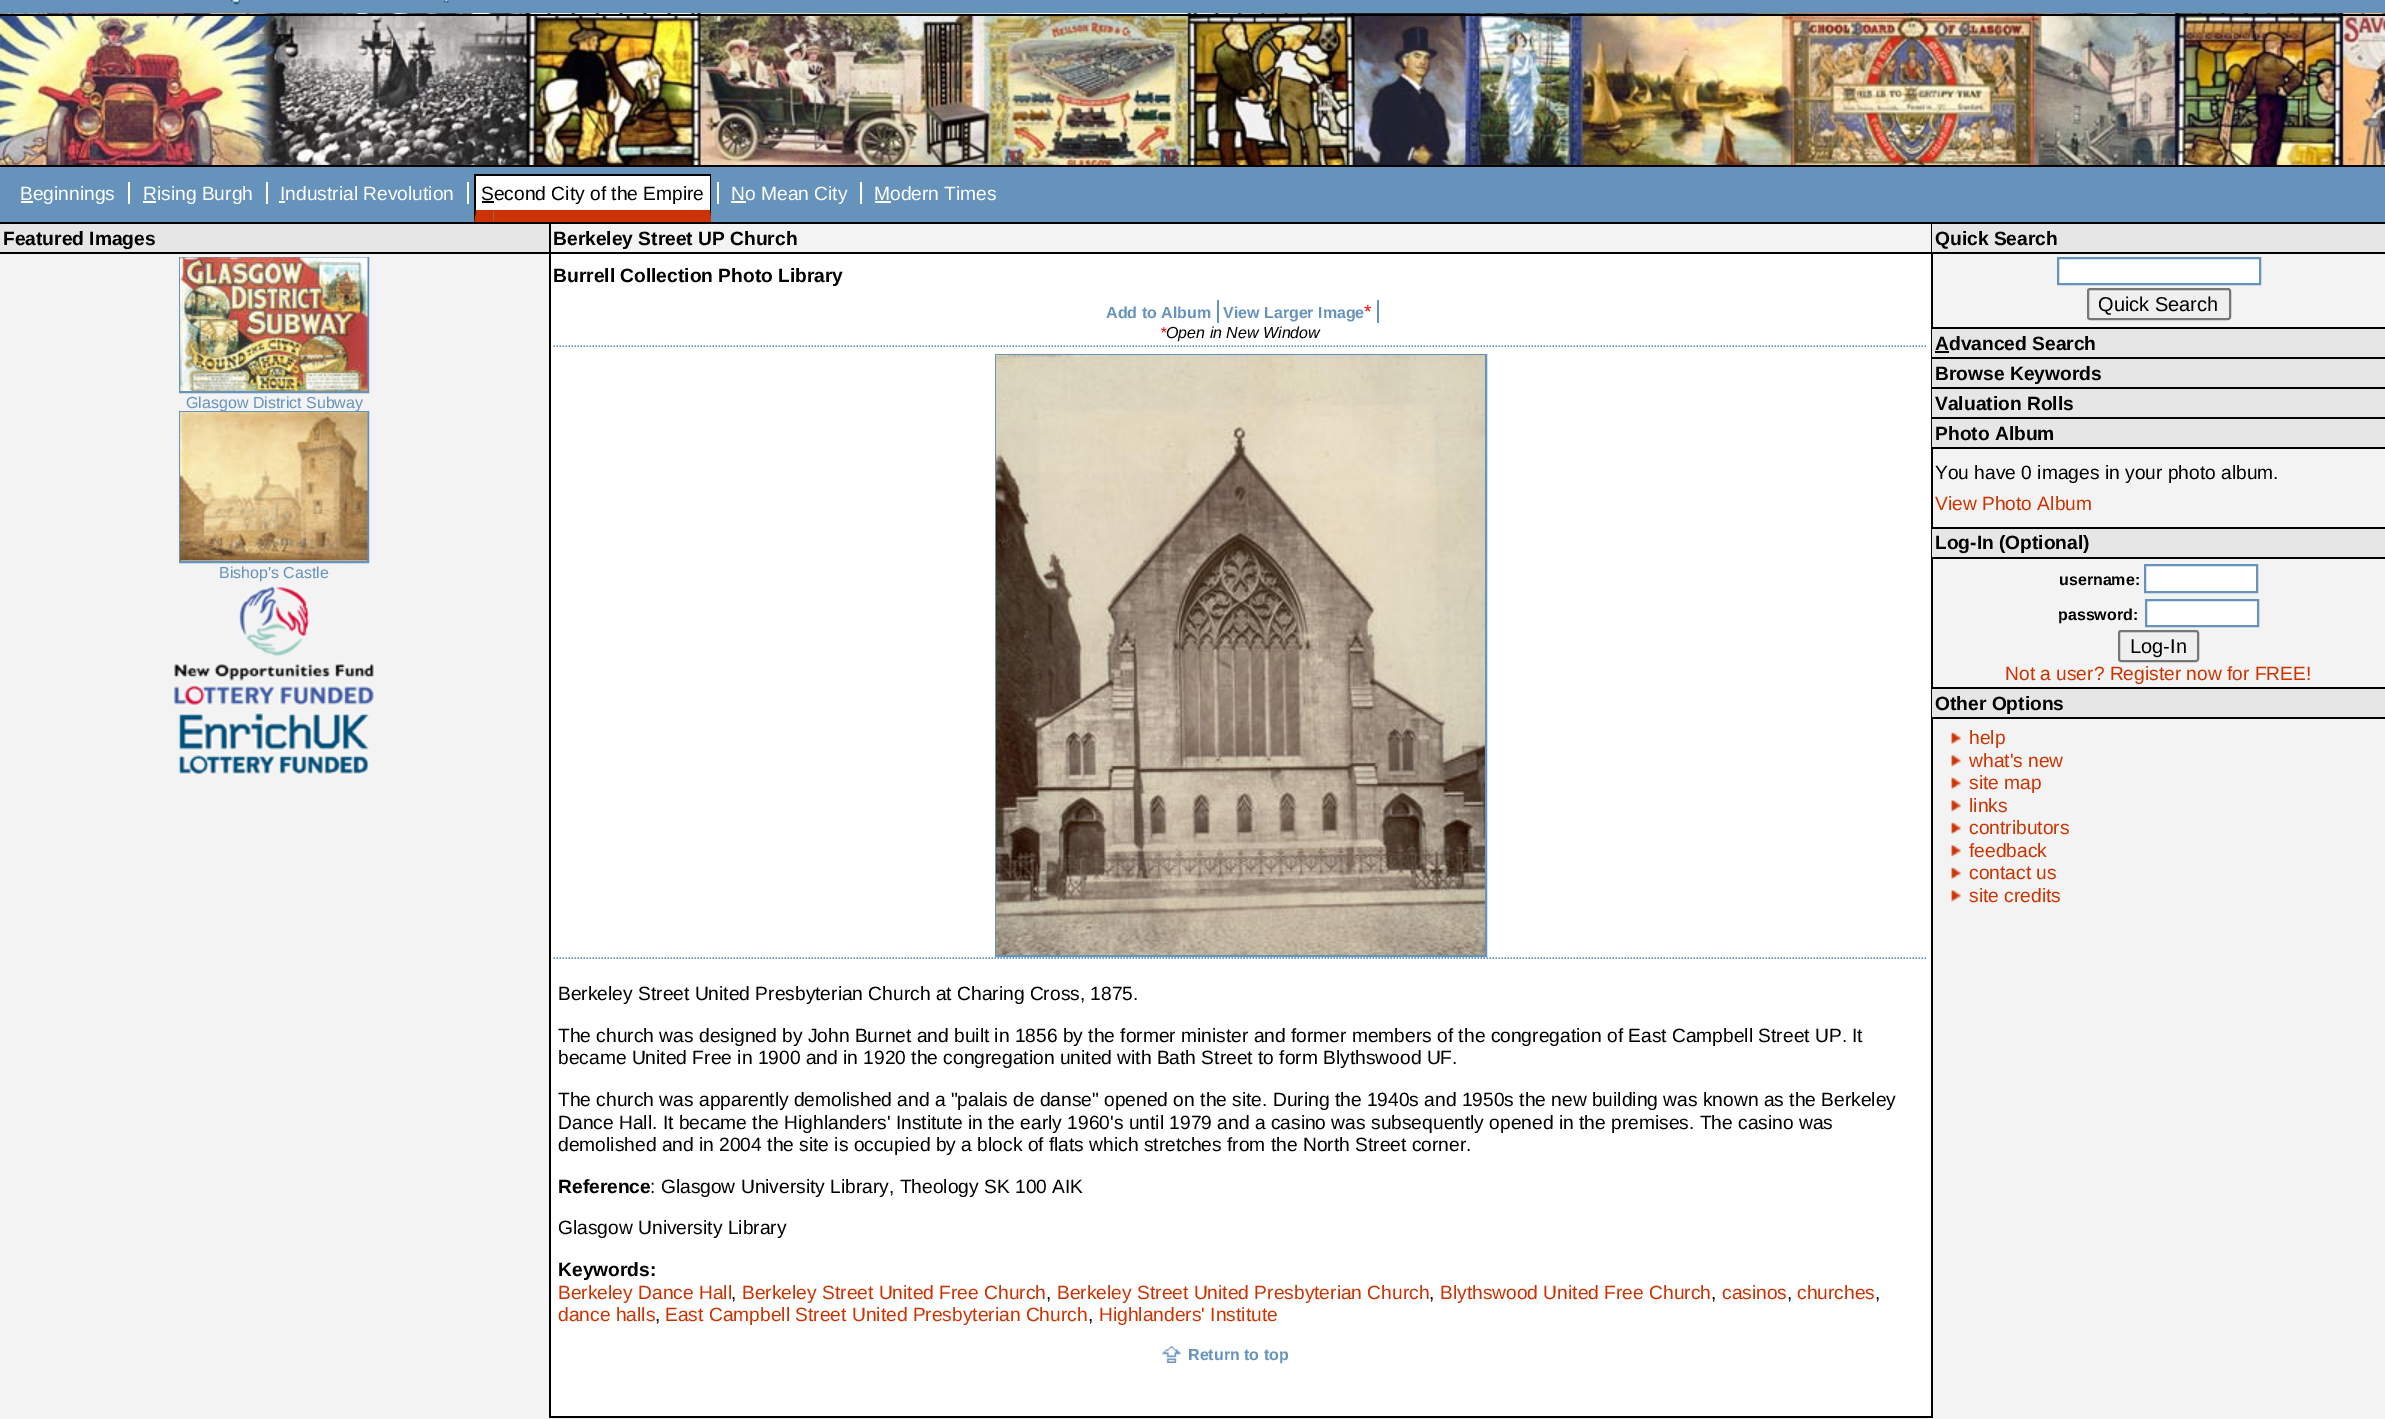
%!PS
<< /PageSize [2385 1419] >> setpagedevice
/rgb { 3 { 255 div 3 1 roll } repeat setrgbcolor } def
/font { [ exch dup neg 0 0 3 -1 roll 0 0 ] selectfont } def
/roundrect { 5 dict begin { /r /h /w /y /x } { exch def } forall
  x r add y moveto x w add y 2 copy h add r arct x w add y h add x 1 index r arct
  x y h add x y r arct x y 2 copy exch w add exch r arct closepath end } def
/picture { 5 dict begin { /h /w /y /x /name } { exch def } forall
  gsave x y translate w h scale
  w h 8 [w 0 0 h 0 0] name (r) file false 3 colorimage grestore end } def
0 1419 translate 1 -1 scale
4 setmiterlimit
243 243 243 rgb
0 0 2385 1419 rectfill
102 147 188 rgb
0 0 2385 13 rectfill
(img/1.rgb) 230 0 219 5 picture
(img/2.rgb) 0 13 2385 152 picture
[
  [0 14 2385 2 0 0 0]
  [0 165 2385 2 0 0 0]
  [0 167 2385 55 102 147 188]
  [0 222 2385 2 0 0 0]
  [21 201 12 2 255 255 255]
  [128 182 2 22 255 255 255]
  [143 201 13 2 255 255 255]
  [266 182 2 22 255 255 255]
  [279 201 6 2 255 255 255]
  [467 182 2 22 255 255 255]
  [476 176 234 34 255 255 255]
  [474 174 237 2 0 0 0]
] { aload pop rgb rectfill } forall
204 51 0 rgb
493.5 222 moveto 474 222 lineto 475.5 210 lineto 493.5 210 lineto closepath fill
0 0 0 rgb
474 222 moveto 474 174 lineto 476 176 lineto 476 210 lineto closepath fill
711 174 moveto 711 222 lineto 710 210 lineto 710 176 lineto closepath fill
204 51 0 rgb
711 222 moveto 494 222 lineto 494 210 lineto 710 210 lineto closepath fill
[
  [482 201 12 2 0 0 0]
  [717 182 2 22 255 255 255]
  [731 201 15 2 255 255 255]
  [860 182 2 22 255 255 255]
  [875 201 16 2 255 255 255]
  [0 224 549 28 230 230 230]
  [0 252 549 2 0 0 0]
] { aload pop rgb rectfill } forall
102 147 188 rgb
2 setlinewidth
180 258 188 134 rectstroke
(img/3.rgb) 180 257 188 134 picture
180 412 188 150 rectstroke
(img/4.rgb) 180 412 188 149 picture
(img/5.rgb) 172 586 203 120 picture
(img/6.rgb) 178 712 191 63 picture
[
  [551 254 1380 1162 255 255 255]
  [1931 224 2 1194 0 0 0]
  [549 1416 1383 2 0 0 0]
  [549 224 2 1194 0 0 0]
  [551 252 1380 2 0 0 0]
] { aload pop rgb rectfill } forall
102 147 188 rgb
1.5 setlinewidth
[1.5 1.5] 0 setdash
553.5 346 moveto 1927.5 346 lineto stroke
1217 300 2 23 rectfill
1377 300 2 23 rectfill
2 setlinewidth
[] 0 setdash
996 355 490 601 rectstroke
(img/7.rgb) 996 355 489 600 picture
1.5 setlinewidth
[1.5 1.5] 0 setdash
553.5 958 moveto 1927.5 958 lineto stroke
(img/8.rgb) 1162 1346 19 17 picture
230 230 230 rgb
1932 224 453 28 rectfill
0 0 0 rgb
1932 252 453 2 rectfill
255 255 255 rgb
2058 258 moveto 2260 258 lineto 2260 284 lineto 2058 284 lineto closepath gsave fill grestore
102 147 188 rgb
2 setlinewidth
[] 0 setdash
stroke
239 239 239 rgb
2088 289 142 30 2 roundrect gsave fill grestore
118 118 118 rgb
stroke
[
  [1932 329 453 28 230 230 230]
  [1932 327 453 2 0 0 0]
  [1935 351 14 2 0 0 0]
  [1932 359 453 28 230 230 230]
  [1932 357 453 2 0 0 0]
  [1932 389 453 28 230 230 230]
  [1932 387 453 2 0 0 0]
  [1932 419 453 28 230 230 230]
  [1932 417 453 2 0 0 0]
  [1932 447 453 2 0 0 0]
  [1932 529 453 28 230 230 230]
  [1932 527 453 2 0 0 0]
  [1932 557 453 2 0 0 0]
] { aload pop rgb rectfill } forall
255 255 255 rgb
2145 565 moveto 2257 565 lineto 2257 592 lineto 2145 592 lineto closepath gsave fill grestore
102 147 188 rgb
stroke
255 255 255 rgb
2146 600 moveto 2258 600 lineto 2258 626 lineto 2146 626 lineto closepath gsave fill grestore
102 147 188 rgb
stroke
239 239 239 rgb
2119 631 79 30 2 roundrect gsave fill grestore
118 118 118 rgb
stroke
[
  [1932 689 453 28 230 230 230]
  [1932 687 453 2 0 0 0]
  [1932 717 453 2 0 0 0]
] { aload pop rgb rectfill } forall
(img/9.rgb) 1951 732 10 12 picture
(img/10.rgb) 1951 755 10 12 picture
(img/9.rgb) 1951 777 10 12 picture
(img/10.rgb) 1951 800 10 12 picture
(img/9.rgb) 1951 822 10 12 picture
(img/10.rgb) 1951 845 10 12 picture
(img/9.rgb) 1951 867 10 12 picture
(img/10.rgb) 1951 890 10 12 picture
/LiberationSans-Regular 19.2 font
255 255 255 rgb
[
  [(Beginnings) 20 200]
  [(Rising Burgh) 143 200]
  [(Industrial Revolution) 280 200]
] { aload pop moveto show } forall
0 0 0 rgb
481 200 moveto (Second City of the Empire) show
255 255 255 rgb
731 200 moveto (No Mean City) show
874 200 moveto (Modern Times) show
/LiberationSans-Bold 19.2 font
0 0 0 rgb
3 245 moveto (Featured Images) show
/LiberationSans-Regular 16 font
102 147 188 rgb
186 408 moveto (Glasgow District Subway) show
219 578 moveto (Bishop's Castle) show
/LiberationSans-Bold 19.2 font
0 0 0 rgb
553 245 moveto (Berkeley Street UP Church) show
553 282 moveto (Burrell Collection Photo Library) show
/LiberationSans-Bold 16 font
102 147 188 rgb
1106 318 moveto (Add to Album) show
1223 318 moveto (View Larger Image) show
/LiberationSans-Regular 19.2 font
255 0 0 rgb
1364 318 moveto (*) show
/LiberationSans-Italic 16 font
1160 338 moveto (*) show
0 0 0 rgb
1166 338 moveto (Open in New Window) show
/LiberationSans-Regular 19.2 font
[
  [(Berkeley Street United Presbyterian Church at Charing Cross, 1875.) 558 1000]
  [(The church was designed by John Burnet and built in 1856 by the former minister and former members of the congregation of East Campbell Street UP.) 558 1042]
  [(It) 1852 1042]
  [(became United Free in 1900 and in 1920 the congregation united with Bath Street to form Blythswood UF.) 558 1064]
  [(The church was apparently demolished and a "palais de danse" opened on the site. During the 1940s and 1950s the new building was known as the Berkeley) 558 1106]
  [(Dance Hall. It became the Highlanders' Institute in the early 1960's until 1979 and a casino was subsequently opened in the premises. The casino was) 558 1129]
  [(demolished and in 2004 the site is occupied by a block of flats which stretches from the North Street corner.) 558 1151]
] { aload pop moveto show } forall
/LiberationSans-Bold 19.2 font
558 1193 moveto (Reference) show
/LiberationSans-Regular 19.2 font
650 1193 moveto (: Glasgow University Library, Theology SK 100 AIK) show
558 1234 moveto (Glasgow University Library) show
/LiberationSans-Bold 19.2 font
558 1276 moveto (Keywords:) show
/LiberationSans-Regular 19.2 font
204 51 0 rgb
558 1299 moveto (Berkeley Dance Hall) show
0 0 0 rgb
731 1299 moveto (,) show
204 51 0 rgb
742 1299 moveto (Berkeley Street United Free Church) show
0 0 0 rgb
1046 1299 moveto (,) show
204 51 0 rgb
1057 1299 moveto (Berkeley Street United Presbyterian Church) show
0 0 0 rgb
1429 1299 moveto (,) show
204 51 0 rgb
1440 1299 moveto (Blythswood United Free Church) show
0 0 0 rgb
1711 1299 moveto (,) show
204 51 0 rgb
1722 1299 moveto (casinos) show
0 0 0 rgb
1787 1299 moveto (,) show
204 51 0 rgb
1797 1299 moveto (churches) show
0 0 0 rgb
1875 1299 moveto (,) show
204 51 0 rgb
558 1321 moveto (dance halls) show
0 0 0 rgb
655 1321 moveto (,) show
204 51 0 rgb
665 1321 moveto (East Campbell Street United Presbyterian Church) show
0 0 0 rgb
1088 1321 moveto (,) show
204 51 0 rgb
1099 1321 moveto (Highlanders' Institute) show
/LiberationSans-Bold 16 font
102 147 188 rgb
1188 1360 moveto (Return to top) show
/LiberationSans-Bold 19.2 font
0 0 0 rgb
1935 245 moveto (Quick Search) show
/LiberationSans-Regular 20 font
2098 311 moveto (Quick Search) show
/LiberationSans-Bold 19.2 font
[
  [(Advanced Search) 1935 350]
  [(Browse Keywords) 1935 380]
  [(Valuation Rolls) 1935 410]
  [(Photo Album) 1935 440]
] { aload pop moveto show } forall
/LiberationSans-Regular 19.2 font
1935 479 moveto (You have 0 images in your photo album.) show
204 51 0 rgb
1935 510 moveto (View Photo Album) show
/LiberationSans-Bold 19.2 font
0 0 0 rgb
1935 549 moveto (Log-In \(Optional\)) show
/LiberationSans-Bold 16 font
2059 585 moveto (username:) show
2058 620 moveto (password:) show
/LiberationSans-Regular 20 font
2130 653 moveto (Log-In) show
/LiberationSans-Regular 19.2 font
204 51 0 rgb
2005 680 moveto (Not a user? Register now for FREE!) show
/LiberationSans-Bold 19.2 font
0 0 0 rgb
1935 710 moveto (Other Options) show
/LiberationSans-Regular 19.2 font
204 51 0 rgb
[
  [(help) 1969 744]
  [(what's new) 1969 767]
  [(site map) 1969 789]
  [(links) 1969 812]
  [(contributors) 1969 834]
  [(feedback) 1969 857]
  [(contact us) 1969 879]
  [(site credits) 1969 902]
] { aload pop moveto show } forall
showpage
